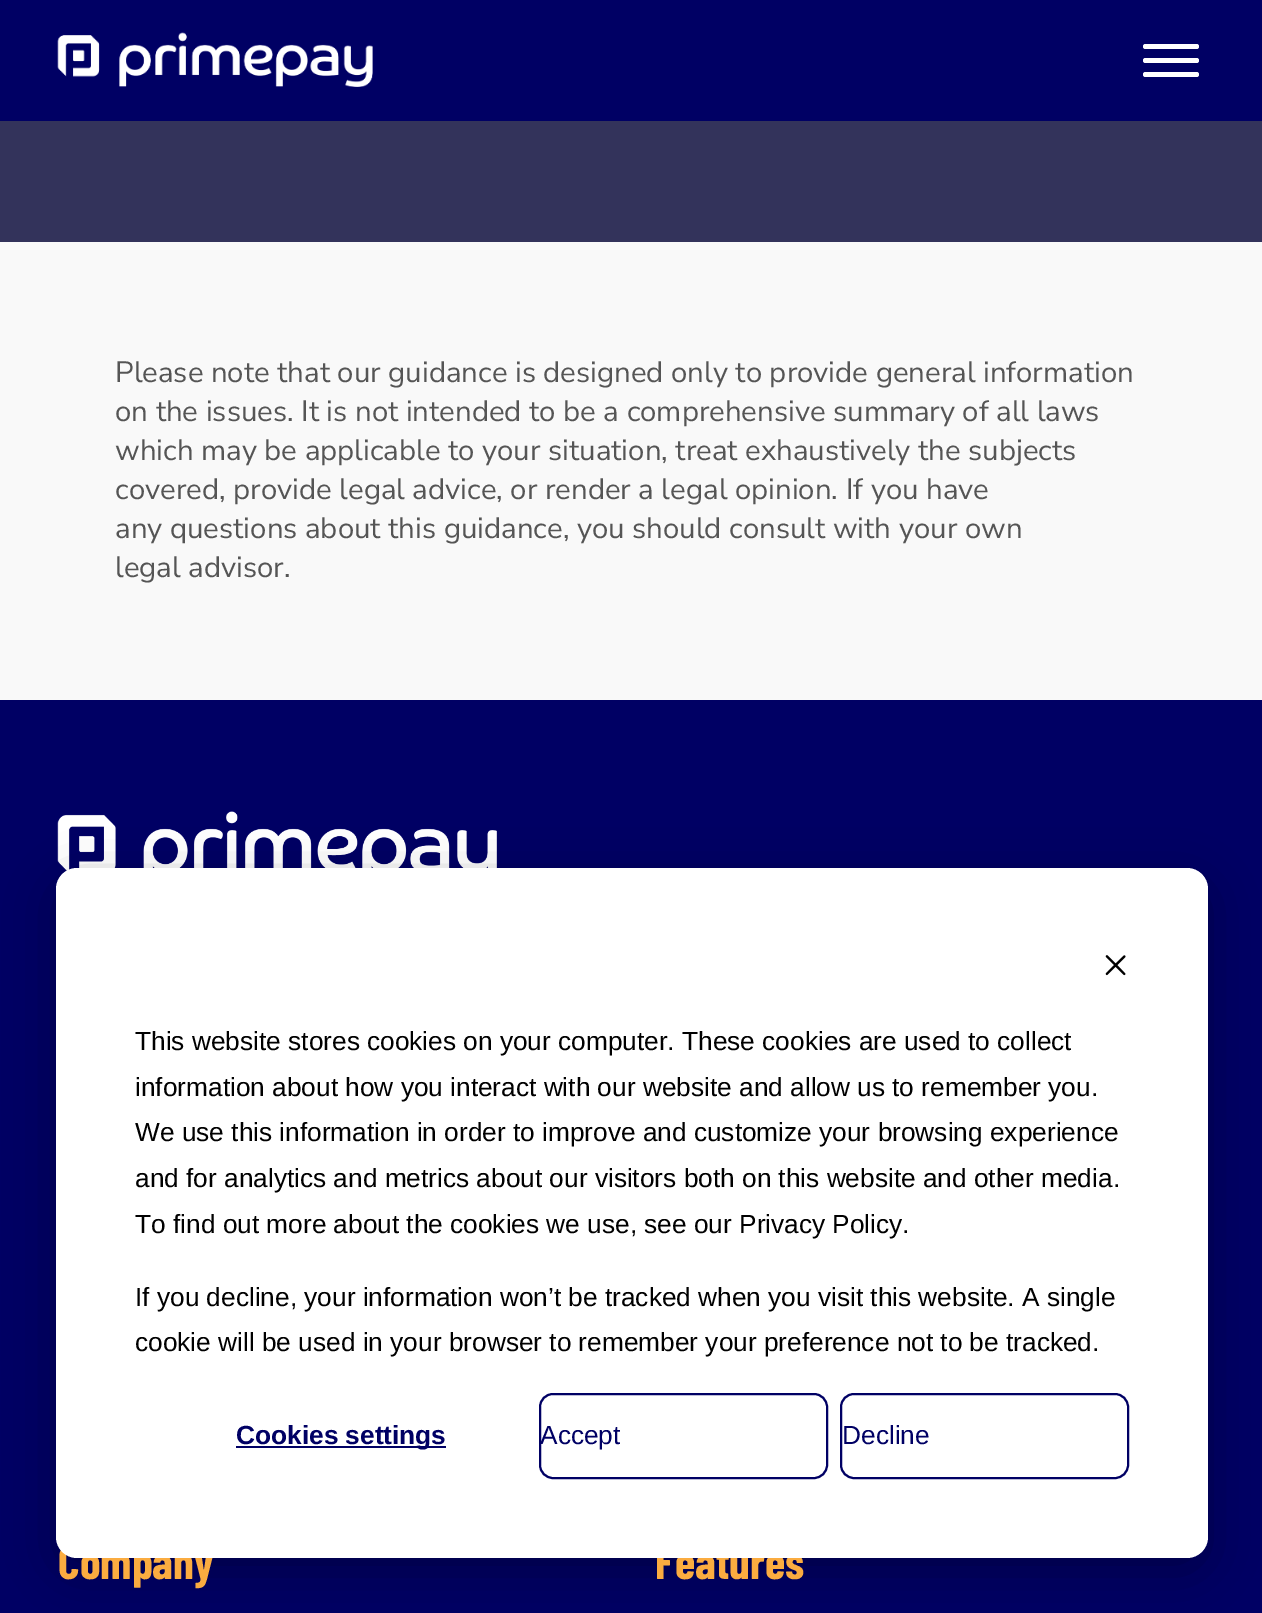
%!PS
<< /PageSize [1262 1613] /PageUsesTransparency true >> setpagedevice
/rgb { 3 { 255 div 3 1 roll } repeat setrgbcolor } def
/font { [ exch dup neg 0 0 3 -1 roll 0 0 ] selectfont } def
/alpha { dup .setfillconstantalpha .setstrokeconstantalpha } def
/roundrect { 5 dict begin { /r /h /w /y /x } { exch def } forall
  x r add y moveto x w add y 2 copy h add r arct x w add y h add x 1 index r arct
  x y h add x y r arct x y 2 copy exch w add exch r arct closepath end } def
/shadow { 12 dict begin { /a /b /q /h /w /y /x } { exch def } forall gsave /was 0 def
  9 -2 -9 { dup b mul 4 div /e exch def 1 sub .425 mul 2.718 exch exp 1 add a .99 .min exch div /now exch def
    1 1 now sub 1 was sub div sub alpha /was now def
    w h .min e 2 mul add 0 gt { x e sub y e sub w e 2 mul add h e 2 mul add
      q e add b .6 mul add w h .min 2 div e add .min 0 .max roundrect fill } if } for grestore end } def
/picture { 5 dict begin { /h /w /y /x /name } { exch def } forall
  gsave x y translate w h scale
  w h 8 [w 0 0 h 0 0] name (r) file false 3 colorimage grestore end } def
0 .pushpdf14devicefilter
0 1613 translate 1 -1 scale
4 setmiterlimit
249 249 249 rgb
0 0 1262 1613 rectfill
0 0 100 rgb
0 0 1262 121 rectfill
(img/1.rgb) 57 32 316 55 picture
255 255 255 rgb
1143 58 56 5 2.5 roundrect fill
1143 44 56 5 2.5 roundrect fill
1143 72 56 5 2.5 roundrect fill
51 51 91 rgb
0 121 1262 121 rectfill
0 0 100 rgb
0 700 1262 913 rectfill
(img/3.rgb) 57 811 440 60 picture
0 0 0 rgb
56 882 1152 690 21 24.5 0.28 shadow
/NunitoSans-ExtraLight 29.35 font
85 85 85 rgb
[
  [(Please note that our guidance is designed only to provide general information) 115 382]
  [(on the issues. It is not intended to be a comprehensive summary of all laws) 115 421]
  [(which may be applicable to your situation, treat exhaustively the subjects) 115 460]
  [(covered, provide legal advice, or render a legal opinion. If you have) 115 499]
  [(any questions about this guidance, you should consult with your own) 115 538]
  [(legal advisor.) 115 577]
] { aload pop moveto show } forall
/BarlowCondensed-Bold 46.5 font
251 172 64 rgb
58 1579 moveto (Company) show
655 1579 moveto (Features) show
255 255 255 rgb
56 868 1152 690 21 roundrect fill
(img/2.rgb) 1105 955 21 21 picture
0 0 100 rgb
2 setlinewidth
841 1394 287 84 13 roundrect stroke
/LiberationSans-Regular 26.25 font
842 1444 moveto (Decline) show
540 1394 287 84 13 roundrect stroke
540 1444 moveto (Accept) show
236 1446 210 2 rectfill
/LiberationSans-Bold 26.25 font
236 1444 moveto (Cookies settings) show
/LiberationSans-Regular 26.25 font
0 0 0 rgb
[
  [(cookie will be used in your browser to remember your preference not to be tracked.) 135 1351]
  [(If you decline, your information won’t be tracked when you visit this website. A single) 135 1306]
  [(To find out more about the cookies we use, see our Privacy Policy.) 135 1233]
  [(and for analytics and metrics about our visitors both on this website and other media.) 135 1187]
  [(We use this information in order to improve and customize your browsing experience) 135 1141]
  [(information about how you interact with our website and allow us to remember you.) 135 1096]
  [(This website stores cookies on your computer. These cookies are used to collect) 135 1050]
] { aload pop moveto show } forall
.poppdf14devicefilter showpage
